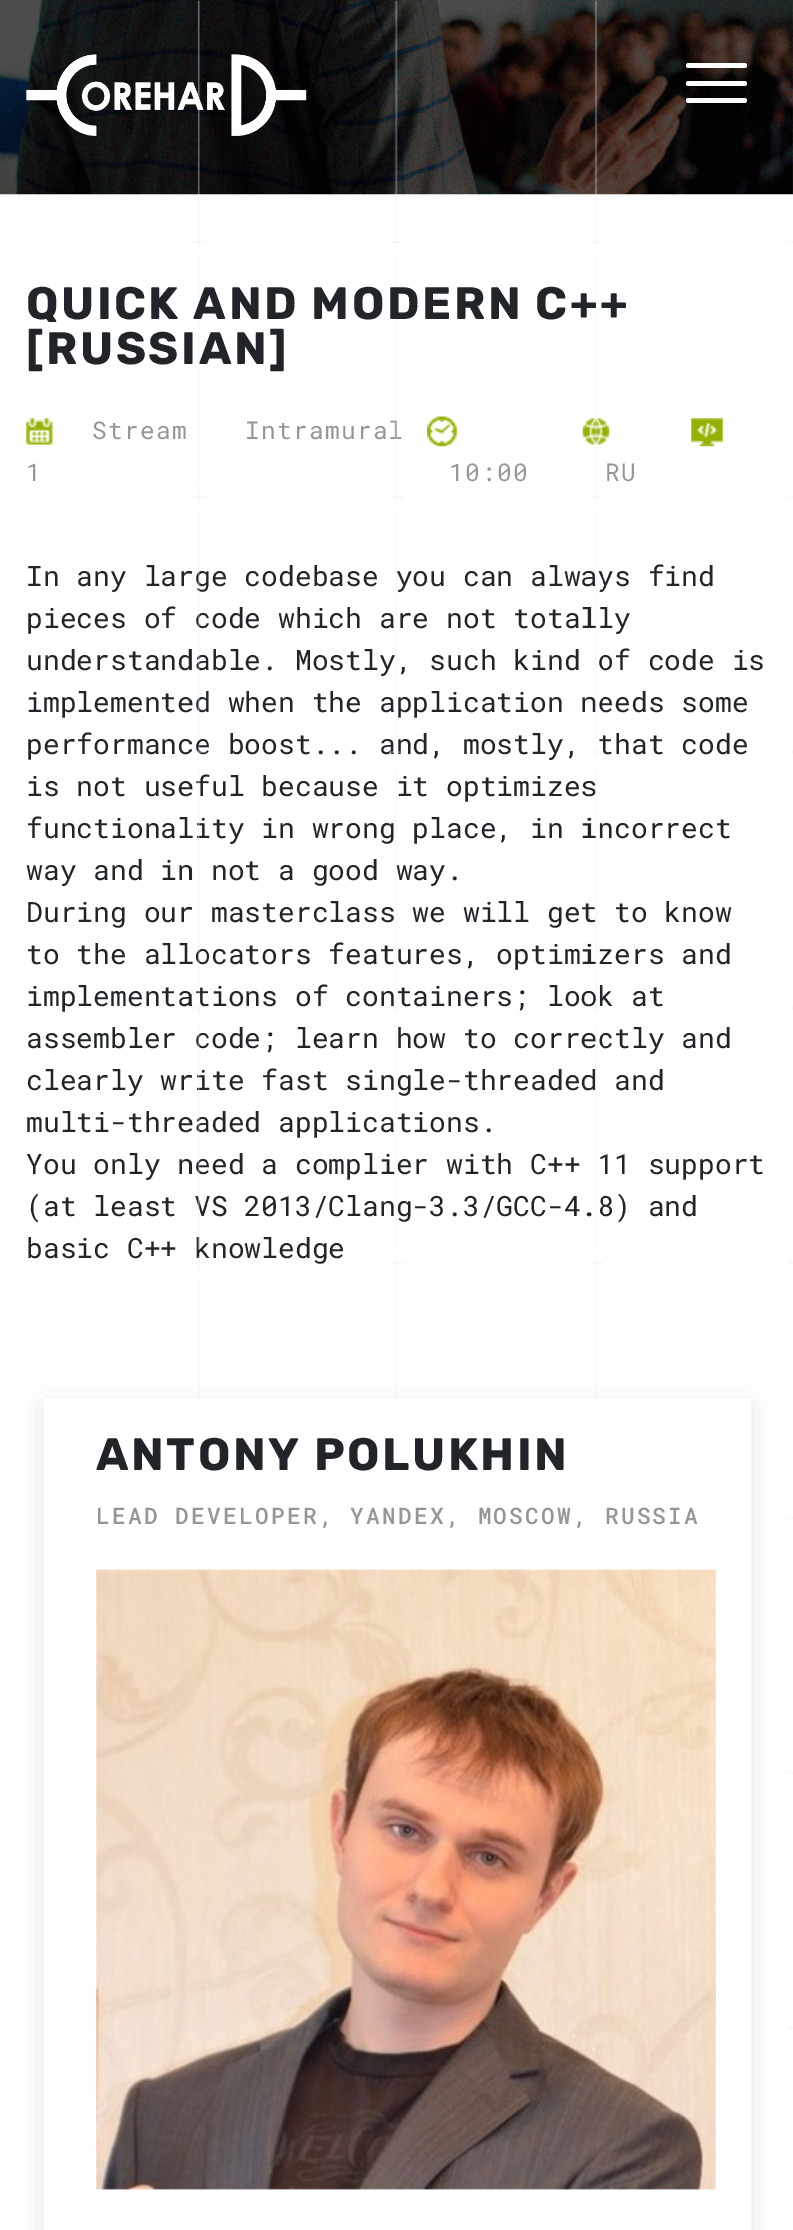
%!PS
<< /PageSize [793 2230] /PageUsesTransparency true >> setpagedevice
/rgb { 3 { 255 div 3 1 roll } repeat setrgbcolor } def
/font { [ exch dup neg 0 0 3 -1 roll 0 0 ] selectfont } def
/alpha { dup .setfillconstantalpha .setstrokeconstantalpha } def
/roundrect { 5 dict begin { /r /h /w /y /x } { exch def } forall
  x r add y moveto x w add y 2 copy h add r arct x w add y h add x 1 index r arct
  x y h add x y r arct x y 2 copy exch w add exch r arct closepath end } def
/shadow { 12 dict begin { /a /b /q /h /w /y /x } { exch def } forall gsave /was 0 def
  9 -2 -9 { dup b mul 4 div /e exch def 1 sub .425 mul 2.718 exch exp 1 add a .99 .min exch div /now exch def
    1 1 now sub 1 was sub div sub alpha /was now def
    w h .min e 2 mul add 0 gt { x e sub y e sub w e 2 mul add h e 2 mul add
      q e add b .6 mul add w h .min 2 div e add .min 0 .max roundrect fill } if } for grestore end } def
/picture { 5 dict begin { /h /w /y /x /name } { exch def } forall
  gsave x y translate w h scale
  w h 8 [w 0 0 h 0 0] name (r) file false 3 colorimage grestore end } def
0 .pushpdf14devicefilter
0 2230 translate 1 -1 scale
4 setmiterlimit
255 255 255 rgb
0 0 793 2230 rectfill
(img/1.rgb) 0 0 793 195 picture
(img/2.rgb) 26 54 281 82 picture
686 63 61 5 2.5 roundrect fill
686 81 61 5 2.5 roundrect fill
686 98 61 5 2.5 roundrect fill
(img/6.rgb) 787 1 6 2028 picture
(img/7.rgb) 26 418 27 27 picture
(img/8.rgb) 427 416 30 31 picture
(img/9.rgb) 582 418 27 27 picture
(img/10.rgb) 691 418 32 29 picture
/RobotoMono-Regular 24.5 font
150 150 150 rgb
92 439 moveto 1.25 0 (Stream) ashow
26 481 moveto 1.25 0 (1) ashow
245 439 moveto 1.25 0 (Intramural) ashow
449 481 moveto 1.25 0 (10:00) ashow
605 481 moveto 1.25 0 (RU) ashow
/RobotoMono-Regular 28 font
33 37 41 rgb
[
  [(In any large codebase you can always find) 26 586]
  [(pieces of code which are not totally) 26 628]
  [(understandable. Mostly, such kind of code is) 26 670]
  [(implemented when the application needs some) 26 712]
  [(performance boost... and, mostly, that code) 26 754]
  [(is not useful because it optimizes) 26 796]
  [(functionality in wrong place, in incorrect) 26 838]
  [(way and in not a good way.) 26 880]
  [(During our masterclass we will get to know) 26 922]
  [(to the allocators features, optimizers and) 26 964]
  [(implementations of containers; look at) 26 1006]
  [(assembler code; learn how to correctly and) 26 1048]
  [(clearly write fast single-threaded and) 26 1090]
  [(multi-threaded applications.) 26 1132]
  [(You only need a complier with C++ 11 support) 26 1174]
  [(\(at least VS 2013/Clang-3.3/GCC-4.8\) and) 26 1216]
] { aload pop moveto show } forall
(img/5.rgb) 589 0 14 1398 picture
(img/4.rgb) 389 0 15 1398 picture
26 1258 moveto (basic C++ knowledge) show
(img/3.rgb) 191 0 16 1398 picture
/Rubik-Bold 45.5 font
26 364 moveto 2.6 0 ([RUSSIAN]) ashow
26 319 moveto 2.6 0 (QUICK AND MODERN C++) ashow
gsave
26 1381 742 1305 rectclip
135 135 135 rgb
44 1405 707 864 0 13 0.21 shadow
grestore
255 255 255 rgb
44 1398 707 832 rectfill
33 37 41 rgb
96 1470 moveto 2.6 0 (ANTONY POLUKHIN) ashow
/RobotoMono-Medium 22.75 font
150 150 150 rgb
96 1524 moveto 2.25 0 (LEAD DEVELOPER, YANDEX, MOSCOW, RUSSIA) ashow
(img/11.rgb) 96 1569 620 621 picture
.poppdf14devicefilter showpage
